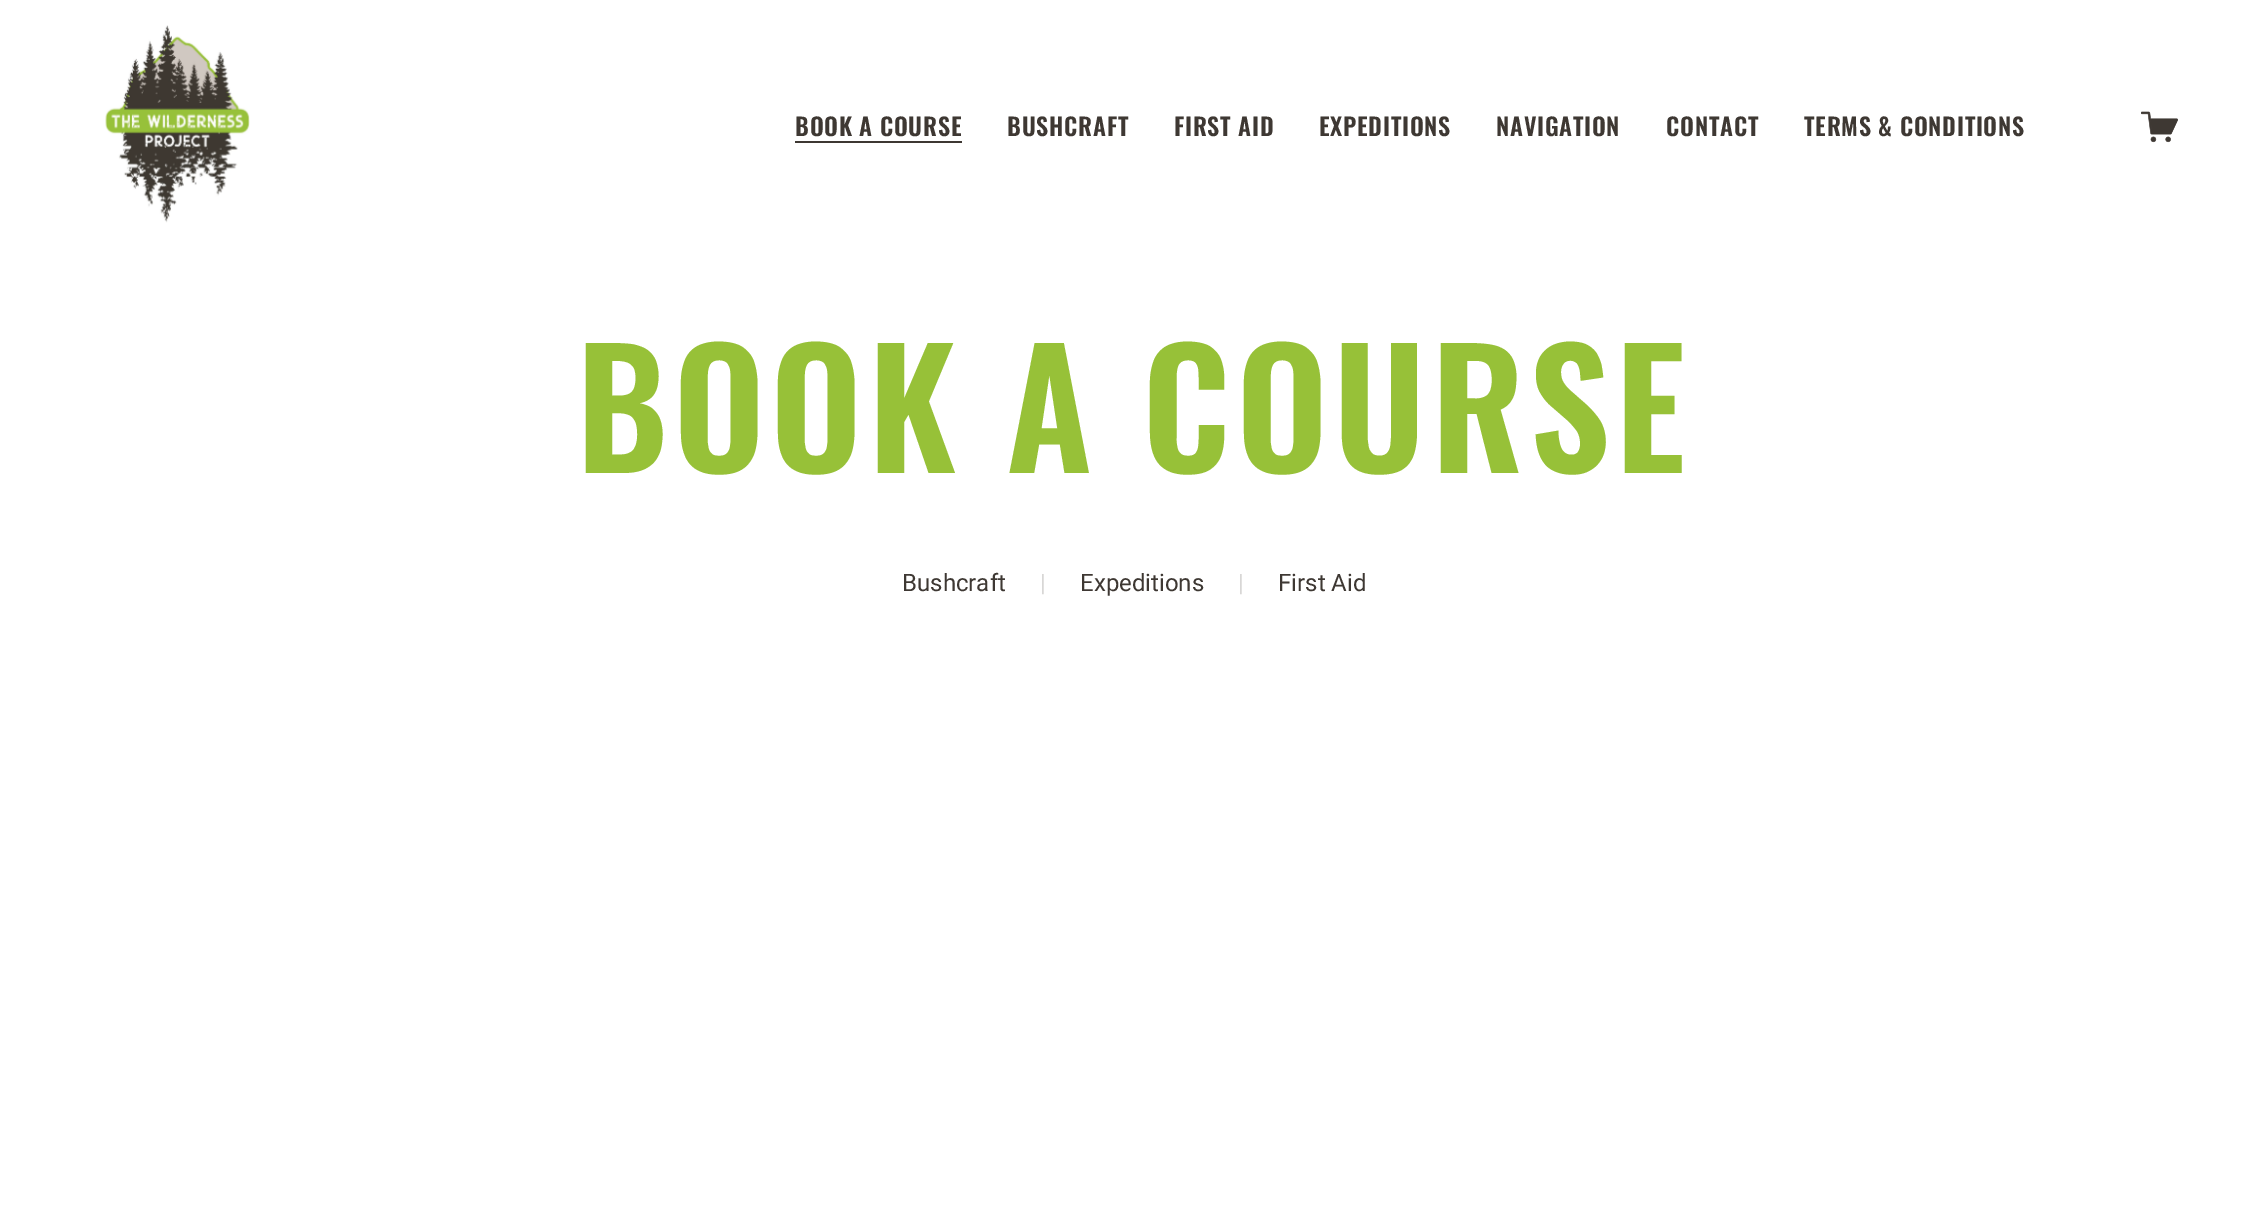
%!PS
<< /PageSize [2267 1208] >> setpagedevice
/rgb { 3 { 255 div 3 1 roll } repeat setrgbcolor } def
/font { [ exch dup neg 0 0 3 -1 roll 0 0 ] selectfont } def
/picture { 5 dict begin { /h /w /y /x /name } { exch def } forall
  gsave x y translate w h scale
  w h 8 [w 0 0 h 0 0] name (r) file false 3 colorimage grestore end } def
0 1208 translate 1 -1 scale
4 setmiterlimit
255 255 255 rgb
0 0 2267 1208 rectfill
(img/1.rgb) 105 25 145 198 picture
62 56 51 rgb
795 141 167 2 rectfill
(img/2.rgb) 2141 111 37 32 picture
/Oswald-SemiBold 24 font
795 136 moveto 0.75 0 (BOOK A COURSE) ashow
1007 136 moveto 0.75 0 (BUSHCRAFT) ashow
1174 136 moveto 0.75 0 (FIRST AID) ashow
1319 136 moveto 0.75 0 (EXPEDITIONS) ashow
1496 136 moveto 0.75 0 (NAVIGATION) ashow
1666 136 moveto 0.75 0 (CONTACT) ashow
1804 136 moveto 0.75 0 (TERMS & CONDITIONS) ashow
/Oswald-SemiBold 160.75 font
151 193 56 rgb
576 473 moveto 4.75 0 (BOOK A COURSE) ashow
/Roboto-Regular 24 font
62 56 51 rgb
902 591 moveto (Bushcraft) show
216 215 214 rgb
1040 591 moveto (|) show
62 56 51 rgb
1080 591 moveto (Expeditions) show
216 215 214 rgb
1238 591 moveto (|) show
62 56 51 rgb
1278 591 moveto (First Aid) show
showpage
